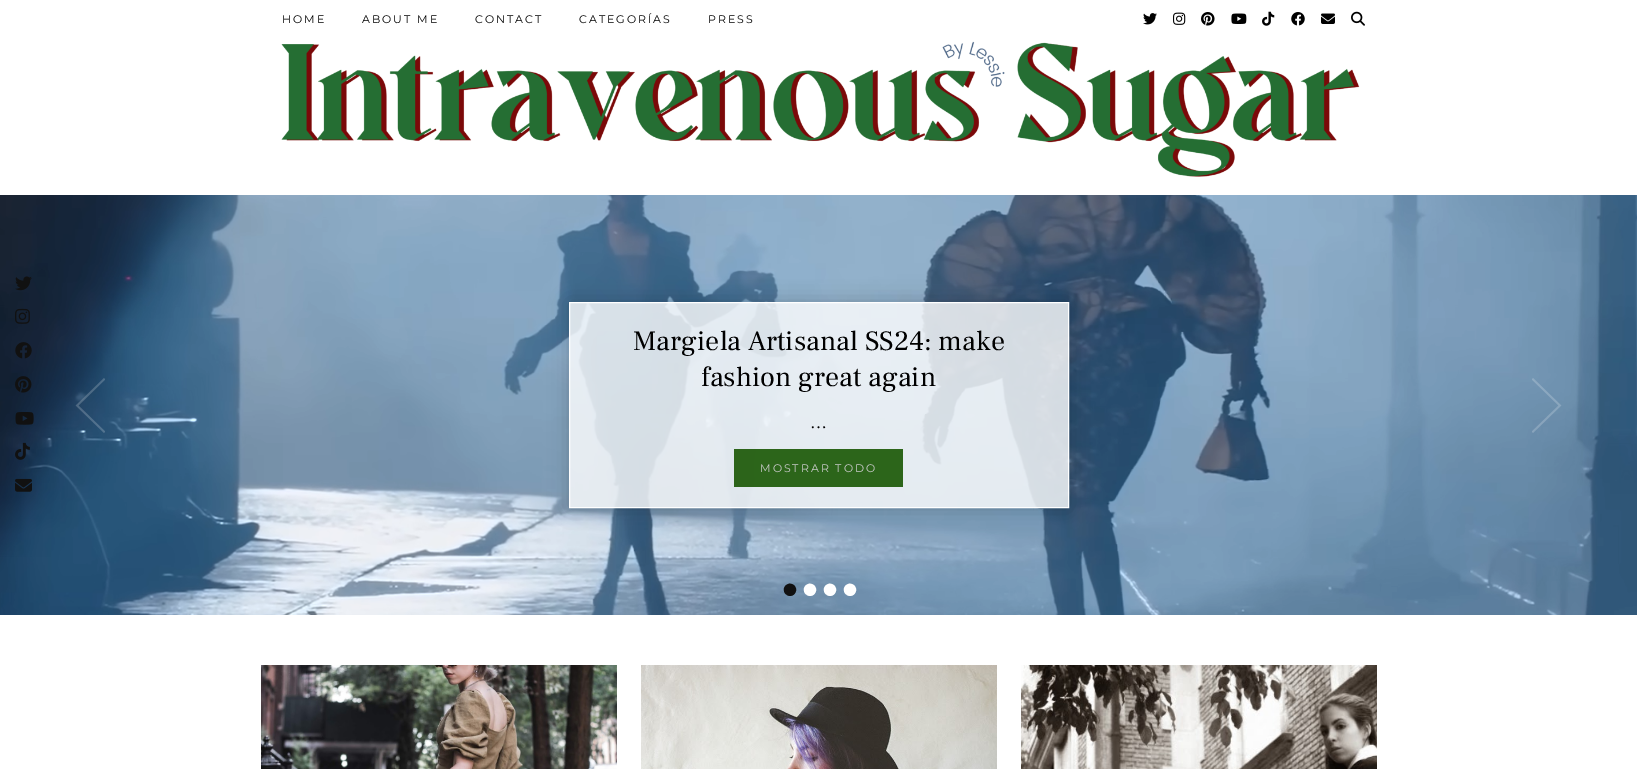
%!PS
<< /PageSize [1637 769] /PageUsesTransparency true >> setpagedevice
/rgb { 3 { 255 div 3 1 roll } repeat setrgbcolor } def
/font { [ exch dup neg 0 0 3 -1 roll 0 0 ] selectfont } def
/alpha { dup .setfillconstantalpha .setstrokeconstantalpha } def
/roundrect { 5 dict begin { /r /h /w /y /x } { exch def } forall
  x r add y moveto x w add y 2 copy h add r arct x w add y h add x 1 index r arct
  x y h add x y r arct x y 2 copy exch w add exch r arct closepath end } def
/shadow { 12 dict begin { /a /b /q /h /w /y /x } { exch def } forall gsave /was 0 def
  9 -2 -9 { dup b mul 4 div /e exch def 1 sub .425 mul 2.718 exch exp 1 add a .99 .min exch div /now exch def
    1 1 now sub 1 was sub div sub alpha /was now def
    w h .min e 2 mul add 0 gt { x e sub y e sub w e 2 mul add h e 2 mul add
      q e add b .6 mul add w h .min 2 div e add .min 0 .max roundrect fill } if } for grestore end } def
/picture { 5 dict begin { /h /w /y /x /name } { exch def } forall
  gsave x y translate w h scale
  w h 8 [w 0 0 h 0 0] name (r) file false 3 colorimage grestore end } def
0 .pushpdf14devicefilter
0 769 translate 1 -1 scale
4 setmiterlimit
255 255 255 rgb
0 0 1637 769 rectfill
(img/1.rgb) 1143 13 14 12 picture
(img/2.rgb) 1173 12 13 13 picture
(img/3.rgb) 1201 12 14 14 picture
(img/4.rgb) 1231 13 16 11 picture
(img/5.rgb) 1262 11 13 15 picture
(img/6.rgb) 1291 12 14 14 picture
(img/7.rgb) 1321 13 14 11 picture
(img/8.rgb) 1351 11 14 15 picture
(img/9.rgb) 281 41 1079 136 picture
(img/18.rgb) 0 195 1637 420 picture
(img/10.rgb) 15 276 17 15 picture
(img/11.rgb) 15 308 15 16 picture
(img/12.rgb) 15 342 17 17 picture
(img/13.rgb) 15 376 17 17 picture
(img/14.rgb) 15 412 19 13 picture
(img/15.rgb) 15 442 15 18 picture
(img/16.rgb) 15 478 17 14 picture
(img/17.rgb) 75 378 30 55 picture
gsave
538 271 moveto 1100 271 lineto 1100 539 lineto 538 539 lineto closepath 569 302 moveto 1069 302 lineto 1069 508 lineto 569 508 lineto closepath eoclip newpath
0 0 0 rgb
569 302 500 206 0 10 0.2 shadow
grestore
0.8 alpha
569.5 302.5 moveto 1068.5 302.5 lineto 1068.5 507.5 lineto 569.5 507.5 lineto closepath fill
1 alpha
569.5 302.5 moveto 1068.5 302.5 lineto 1068.5 507.5 lineto 569.5 507.5 lineto closepath stroke
0.9 alpha
24 86 3 rgb
734 449 169 38 rectfill
1 alpha
(img/19.rgb) 1532 378 30 55 picture
(img/20.rgb) 261 665 356 104 picture
(img/21.rgb) 641 665 356 104 picture
(img/22.rgb) 1021 665 356 104 picture
/Montserrat-Thin 11 font
0 0 0 rgb
282 23 moveto 2 0 (HOME) ashow
362 23 moveto 2 0 (ABOUT ME) ashow
475 23 moveto 2 0 (CONTACT) ashow
579 23 moveto 2 0 (CATEGORÍAS) ashow
708 23 moveto 2 0 (PRESS) ashow
/FrankRuhlLibre-Regular 28 font
633 350 moveto (Margiela Artisanal SS24: make) show
701 386 moveto (fashion great again) show
/CenturyGothic-Regular 17 font
810 428 moveto (…) show
/Montserrat-Thin 11 font
204 204 205 rgb
760 472 moveto 2 0 (MOSTRAR TODO) ashow
/LiberationSans-Regular 46 font
17 17 17 rgb
782 605 moveto (•) show
255 255 255 rgb
[
  [(•) 802 605]
  [(•) 822 605]
  [(•) 842 605]
] { aload pop moveto show } forall
.poppdf14devicefilter showpage
